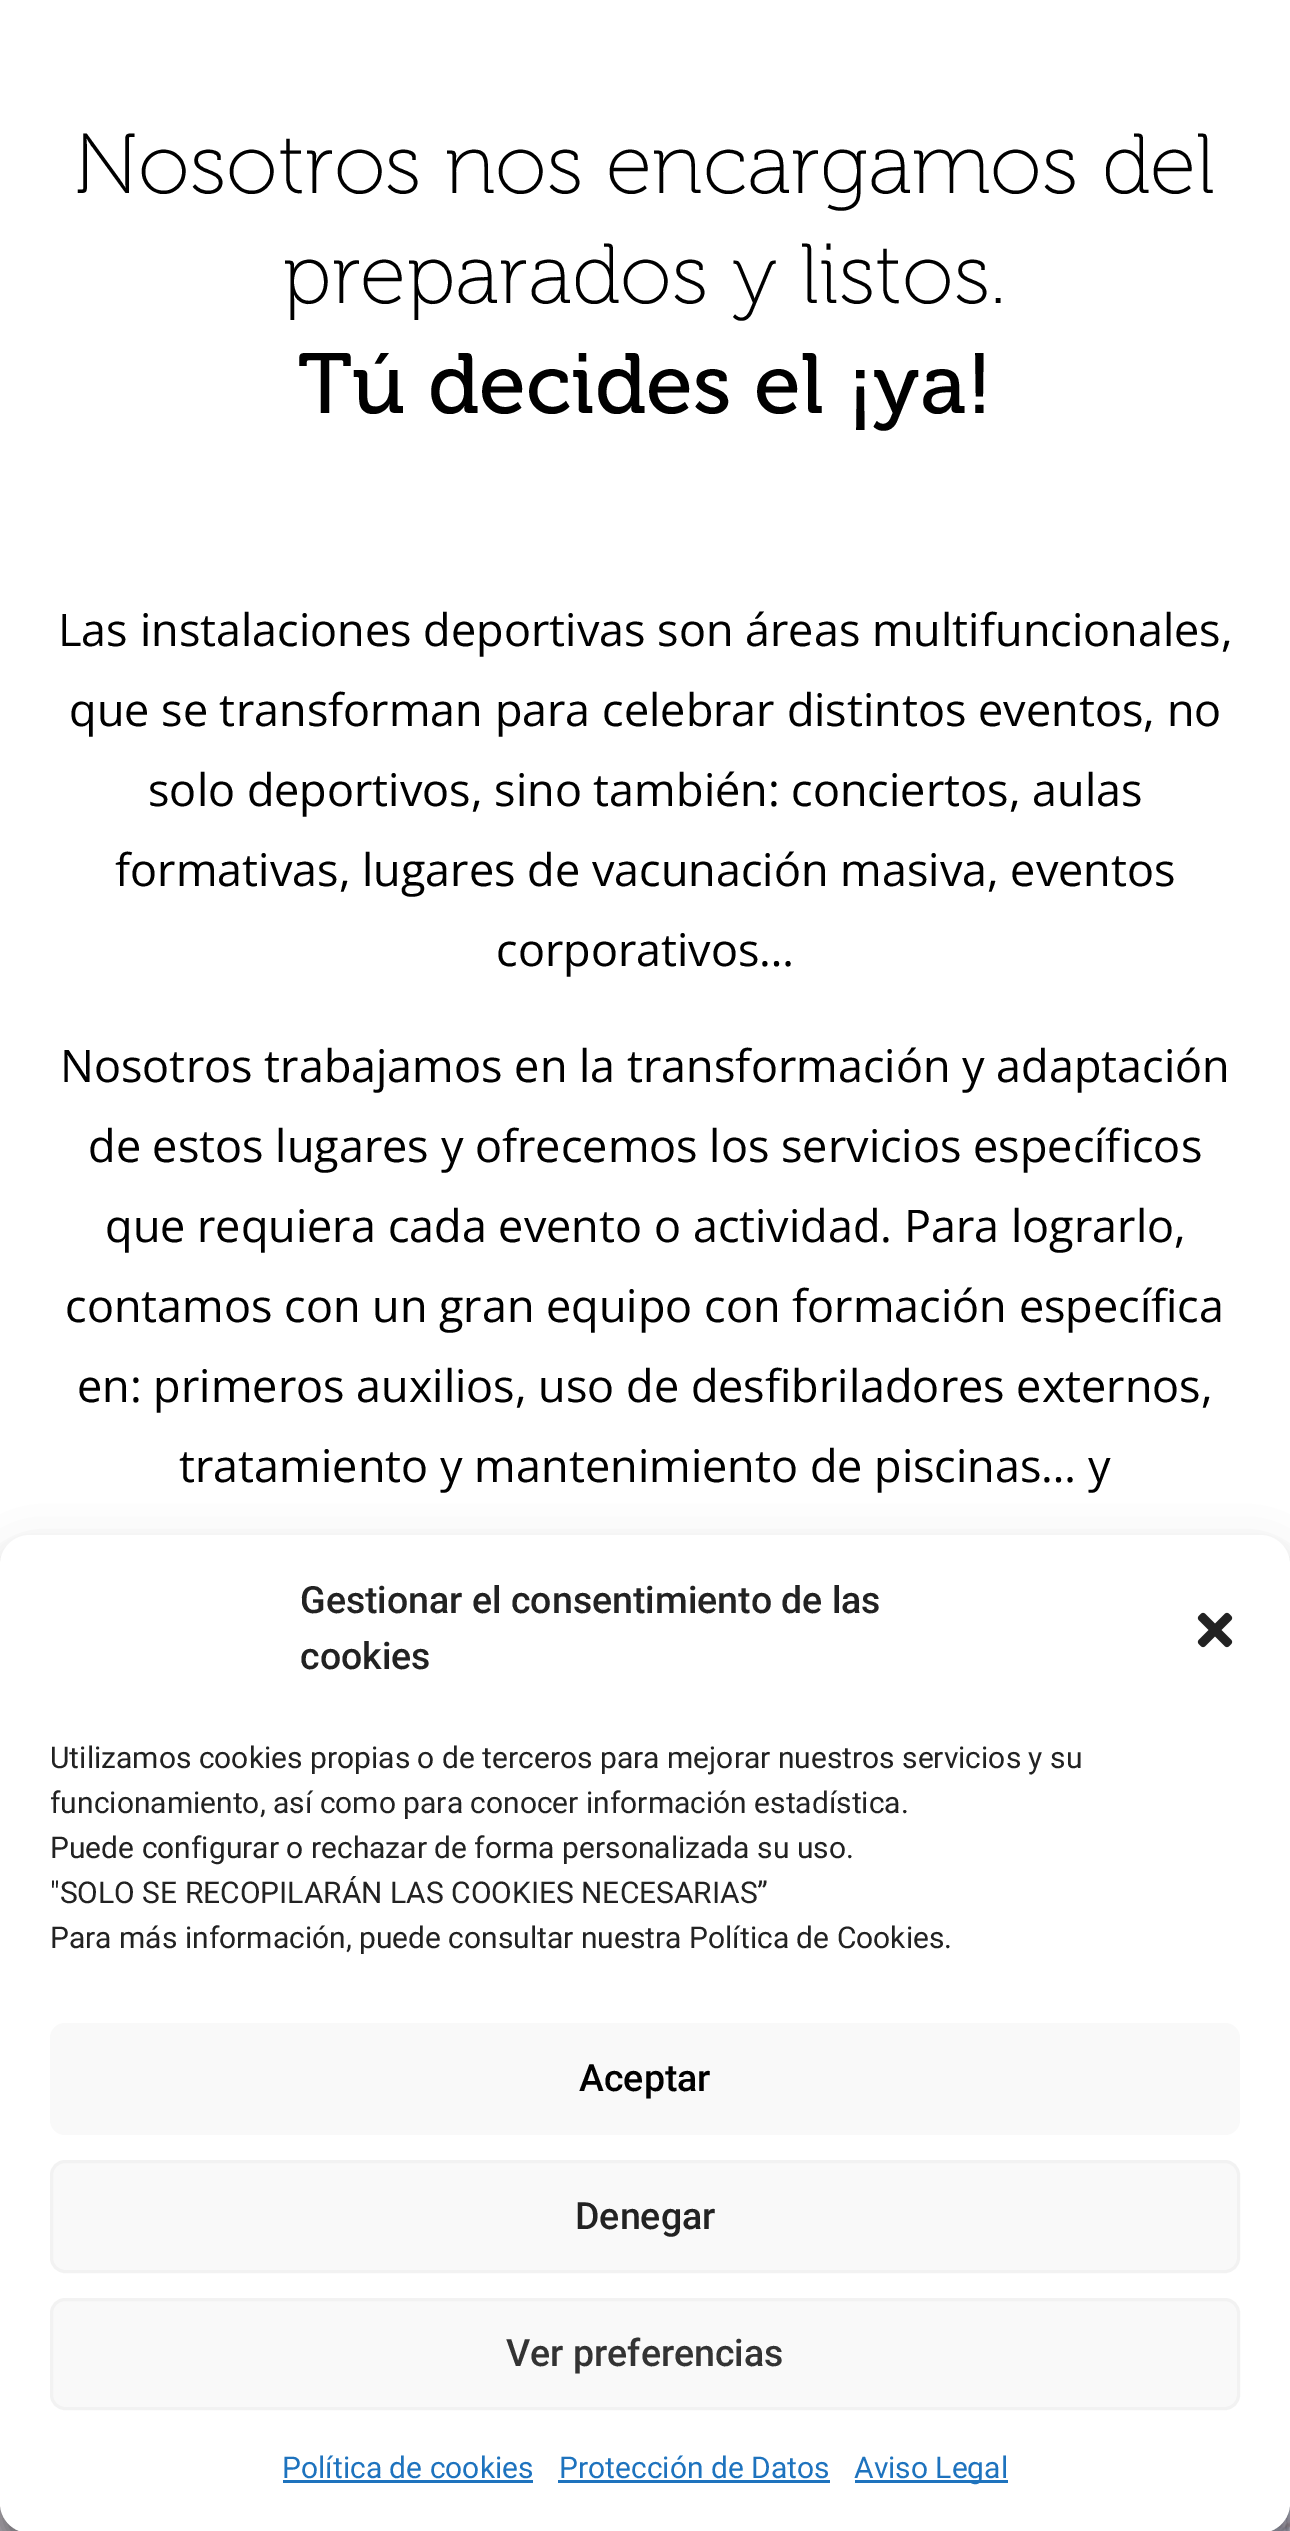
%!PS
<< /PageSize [1290 2531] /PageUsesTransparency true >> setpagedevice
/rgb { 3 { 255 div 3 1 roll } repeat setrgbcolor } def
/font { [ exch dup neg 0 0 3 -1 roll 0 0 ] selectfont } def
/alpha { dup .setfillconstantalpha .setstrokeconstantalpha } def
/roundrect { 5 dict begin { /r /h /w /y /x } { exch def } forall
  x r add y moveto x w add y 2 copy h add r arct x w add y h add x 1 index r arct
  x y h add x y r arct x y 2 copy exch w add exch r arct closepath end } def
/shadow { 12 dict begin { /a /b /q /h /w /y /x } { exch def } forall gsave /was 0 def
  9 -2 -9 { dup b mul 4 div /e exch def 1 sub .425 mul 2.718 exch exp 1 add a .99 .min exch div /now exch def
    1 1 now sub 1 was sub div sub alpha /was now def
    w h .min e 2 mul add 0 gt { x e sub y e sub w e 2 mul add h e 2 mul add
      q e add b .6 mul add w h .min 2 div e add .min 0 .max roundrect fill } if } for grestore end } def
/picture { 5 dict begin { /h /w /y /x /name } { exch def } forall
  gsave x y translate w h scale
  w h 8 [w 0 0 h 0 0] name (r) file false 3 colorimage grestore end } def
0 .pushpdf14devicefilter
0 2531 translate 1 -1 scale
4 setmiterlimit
255 255 255 rgb
0 0 1290 2531 rectfill
(img/1.rgb) 0 2503 1290 28 picture
0 0 0 rgb
0 1550 1290 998 30 7.5 0.23 shadow
0 1560 1290 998 30 25 0.19 shadow
255 255 255 rgb
0 1535 1290 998 30 roundrect fill
(img/2.rgb) 1197 1612 36 36 picture
249 249 249 rgb
50 2023 1190 112 15 roundrect fill
51.5 2161.5 1187 110 13.5 roundrect gsave fill grestore
242 242 242 rgb
3 setlinewidth
stroke
249 249 249 rgb
51.5 2299.5 1187 109 13.5 roundrect gsave fill grestore
242 242 242 rgb
stroke
[
  [283 2480 250 3 30 115 190]
  [558 2480 272 3 30 115 190]
  [855 2480 153 3 30 115 190]
] { aload pop rgb rectfill } forall
/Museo-Regular 85 font
0 0 0 rgb
74 193 moveto (Nosotros nos encargamos del) show
283 303 moveto (preparados y listos.) show
/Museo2-Regular 85 font
298 413 moveto (Tú decides el ¡ya!) show
/OpenSans-Regular 45 font
[
  [(Las instalaciones deportivas son áreas multifuncionales,) 58 646]
  [(que se transforman para celebrar distintos eventos, no) 69 726]
  [(solo deportivos, sino también: conciertos, aulas) 148 806]
  [(formativas, lugares de vacunación masiva, eventos) 115 886]
  [(corporativos…) 496 966]
  [(Nosotros trabajamos en la transformación y adaptación) 60 1082]
  [(de estos lugares y ofrecemos los servicios específicos) 88 1162]
  [(que requiera cada evento o actividad. Para lograrlo,) 105 1242]
  [(contamos con un gran equipo con formación específica) 65 1322]
  [(en: primeros auxilios, uso de desfibriladores externos,) 77 1402]
  [(tratamiento y mantenimiento de piscinas… y) 179 1482]
] { aload pop moveto show } forall
/Roboto-Medium 37.5 font
34 34 34 rgb
300 1613 moveto (Gestionar el consentimiento de las) show
300 1669 moveto (cookies) show
/Roboto-Regular 30 font
[
  [(Utilizamos cookies propias o de terceros para mejorar nuestros servicios y su) 50 1768]
  [(funcionamiento, así como para conocer información estadística.) 50 1813]
  [(Puede configurar o rechazar de forma personalizada su uso.) 50 1858]
  [("SOLO SE RECOPILARÁN LAS COOKIES NECESARIAS”) 50 1903]
  [(Para más información, puede consultar nuestra Política de Cookies.) 50 1948]
] { aload pop moveto show } forall
/Roboto-Medium 37.5 font
0 0 0 rgb
579 2091 moveto (Aceptar) show
34 34 34 rgb
575 2229 moveto (Denegar) show
51 51 51 rgb
506 2366 moveto (Ver preferencias) show
/Roboto-Regular 30 font
30 115 190 rgb
[
  [(Política de cookies) 282 2478]
  [(Protección de Datos) 559 2478]
  [(Aviso Legal) 854 2478]
] { aload pop moveto show } forall
.poppdf14devicefilter showpage
